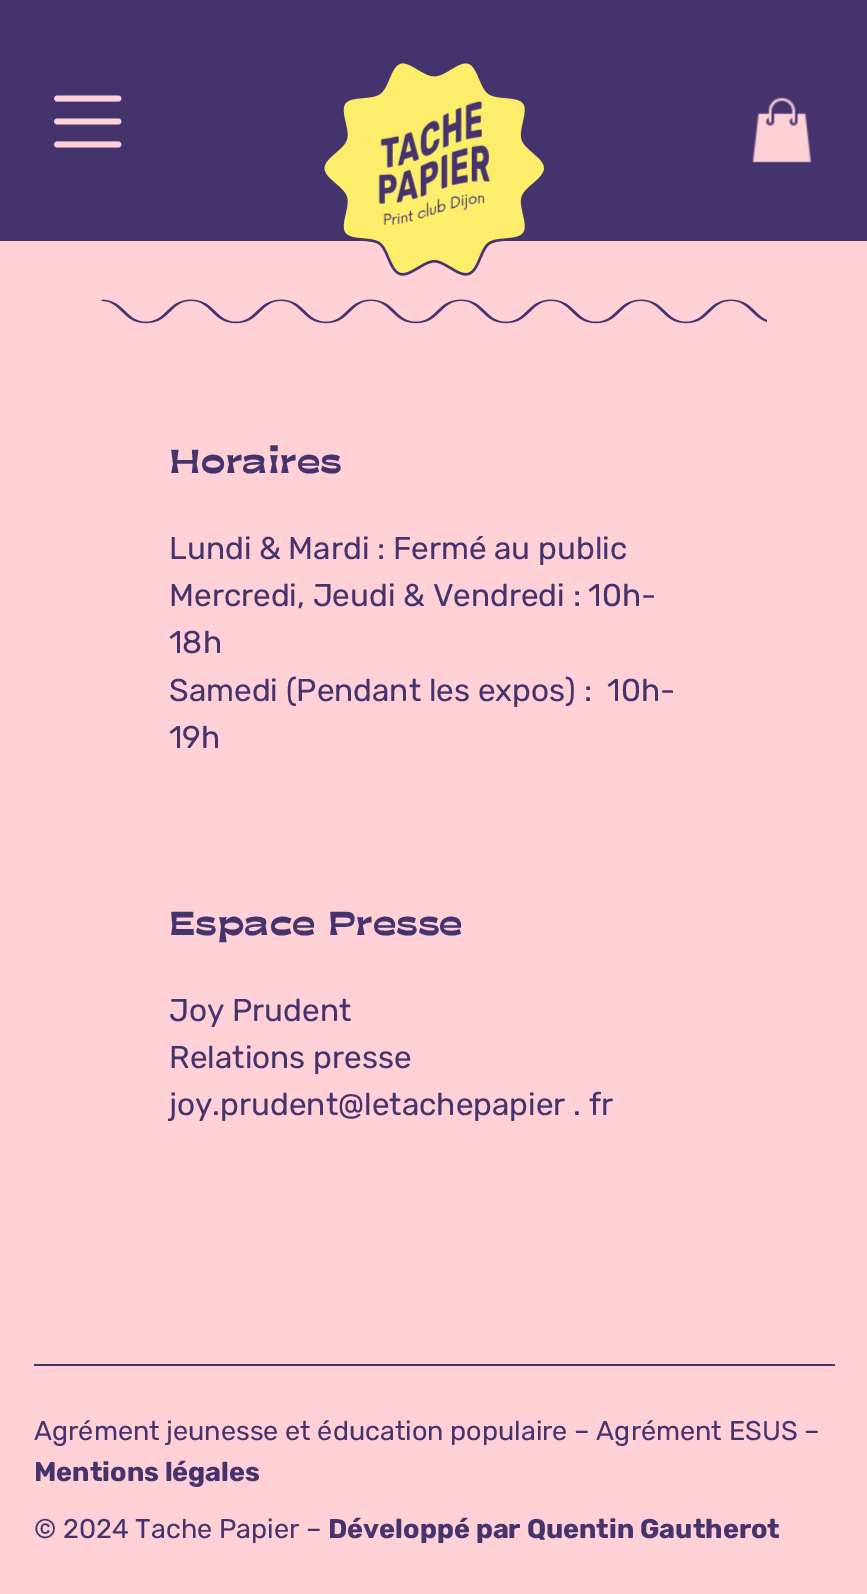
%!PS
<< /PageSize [867 1594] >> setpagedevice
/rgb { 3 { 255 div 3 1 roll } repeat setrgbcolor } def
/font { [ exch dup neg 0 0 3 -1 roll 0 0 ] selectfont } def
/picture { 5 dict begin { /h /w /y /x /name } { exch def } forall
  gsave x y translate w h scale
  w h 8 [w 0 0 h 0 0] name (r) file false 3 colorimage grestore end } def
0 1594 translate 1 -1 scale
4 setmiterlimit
255 209 215 rgb
0 0 867 1594 rectfill
69 51 110 rgb
0 0 867 241 rectfill
(img/1.rgb) 54 95 68 53 picture
(img/2.rgb) 324 63 220 213 picture
(img/3.rgb) 378 101 112 124 picture
(img/4.rgb) 752 97 60 66 picture
(img/5.rgb) 101 299 666 25 picture
34 1364 801 2 rectfill
/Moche-Bold 36 font
169 473 moveto (Horaires) show
/Rubik-Regular 31.5 font
[
  [(Lundi & Mardi : Fermé au public) 169 559]
  [(Mercredi, Jeudi & Vendredi : 10h-) 169 606]
  [(18h) 169 653]
  [(Samedi \(Pendant les expos\) :  10h-) 169 701]
  [(19h) 169 748]
] { aload pop moveto show } forall
/Moche-Bold 36 font
169 935 moveto (Espace Presse) show
/Rubik-Regular 31.5 font
[
  [(Joy Prudent) 169 1021]
  [(Relations presse) 169 1068]
  [(joy.prudent@letachepapier . fr) 169 1115]
] { aload pop moveto show } forall
/Rubik-Regular 27 font
34 1440 moveto (Agrément jeunesse et éducation populaire – Agrément ESUS –) show
/Rubik-Bold 27 font
34 1481 moveto (Mentions légales) show
/Rubik-Regular 27 font
34 1538 moveto (© 2024 Tache Papier –) show
/Rubik-Bold 27 font
328 1538 moveto (Développé par Quentin Gautherot) show
showpage
